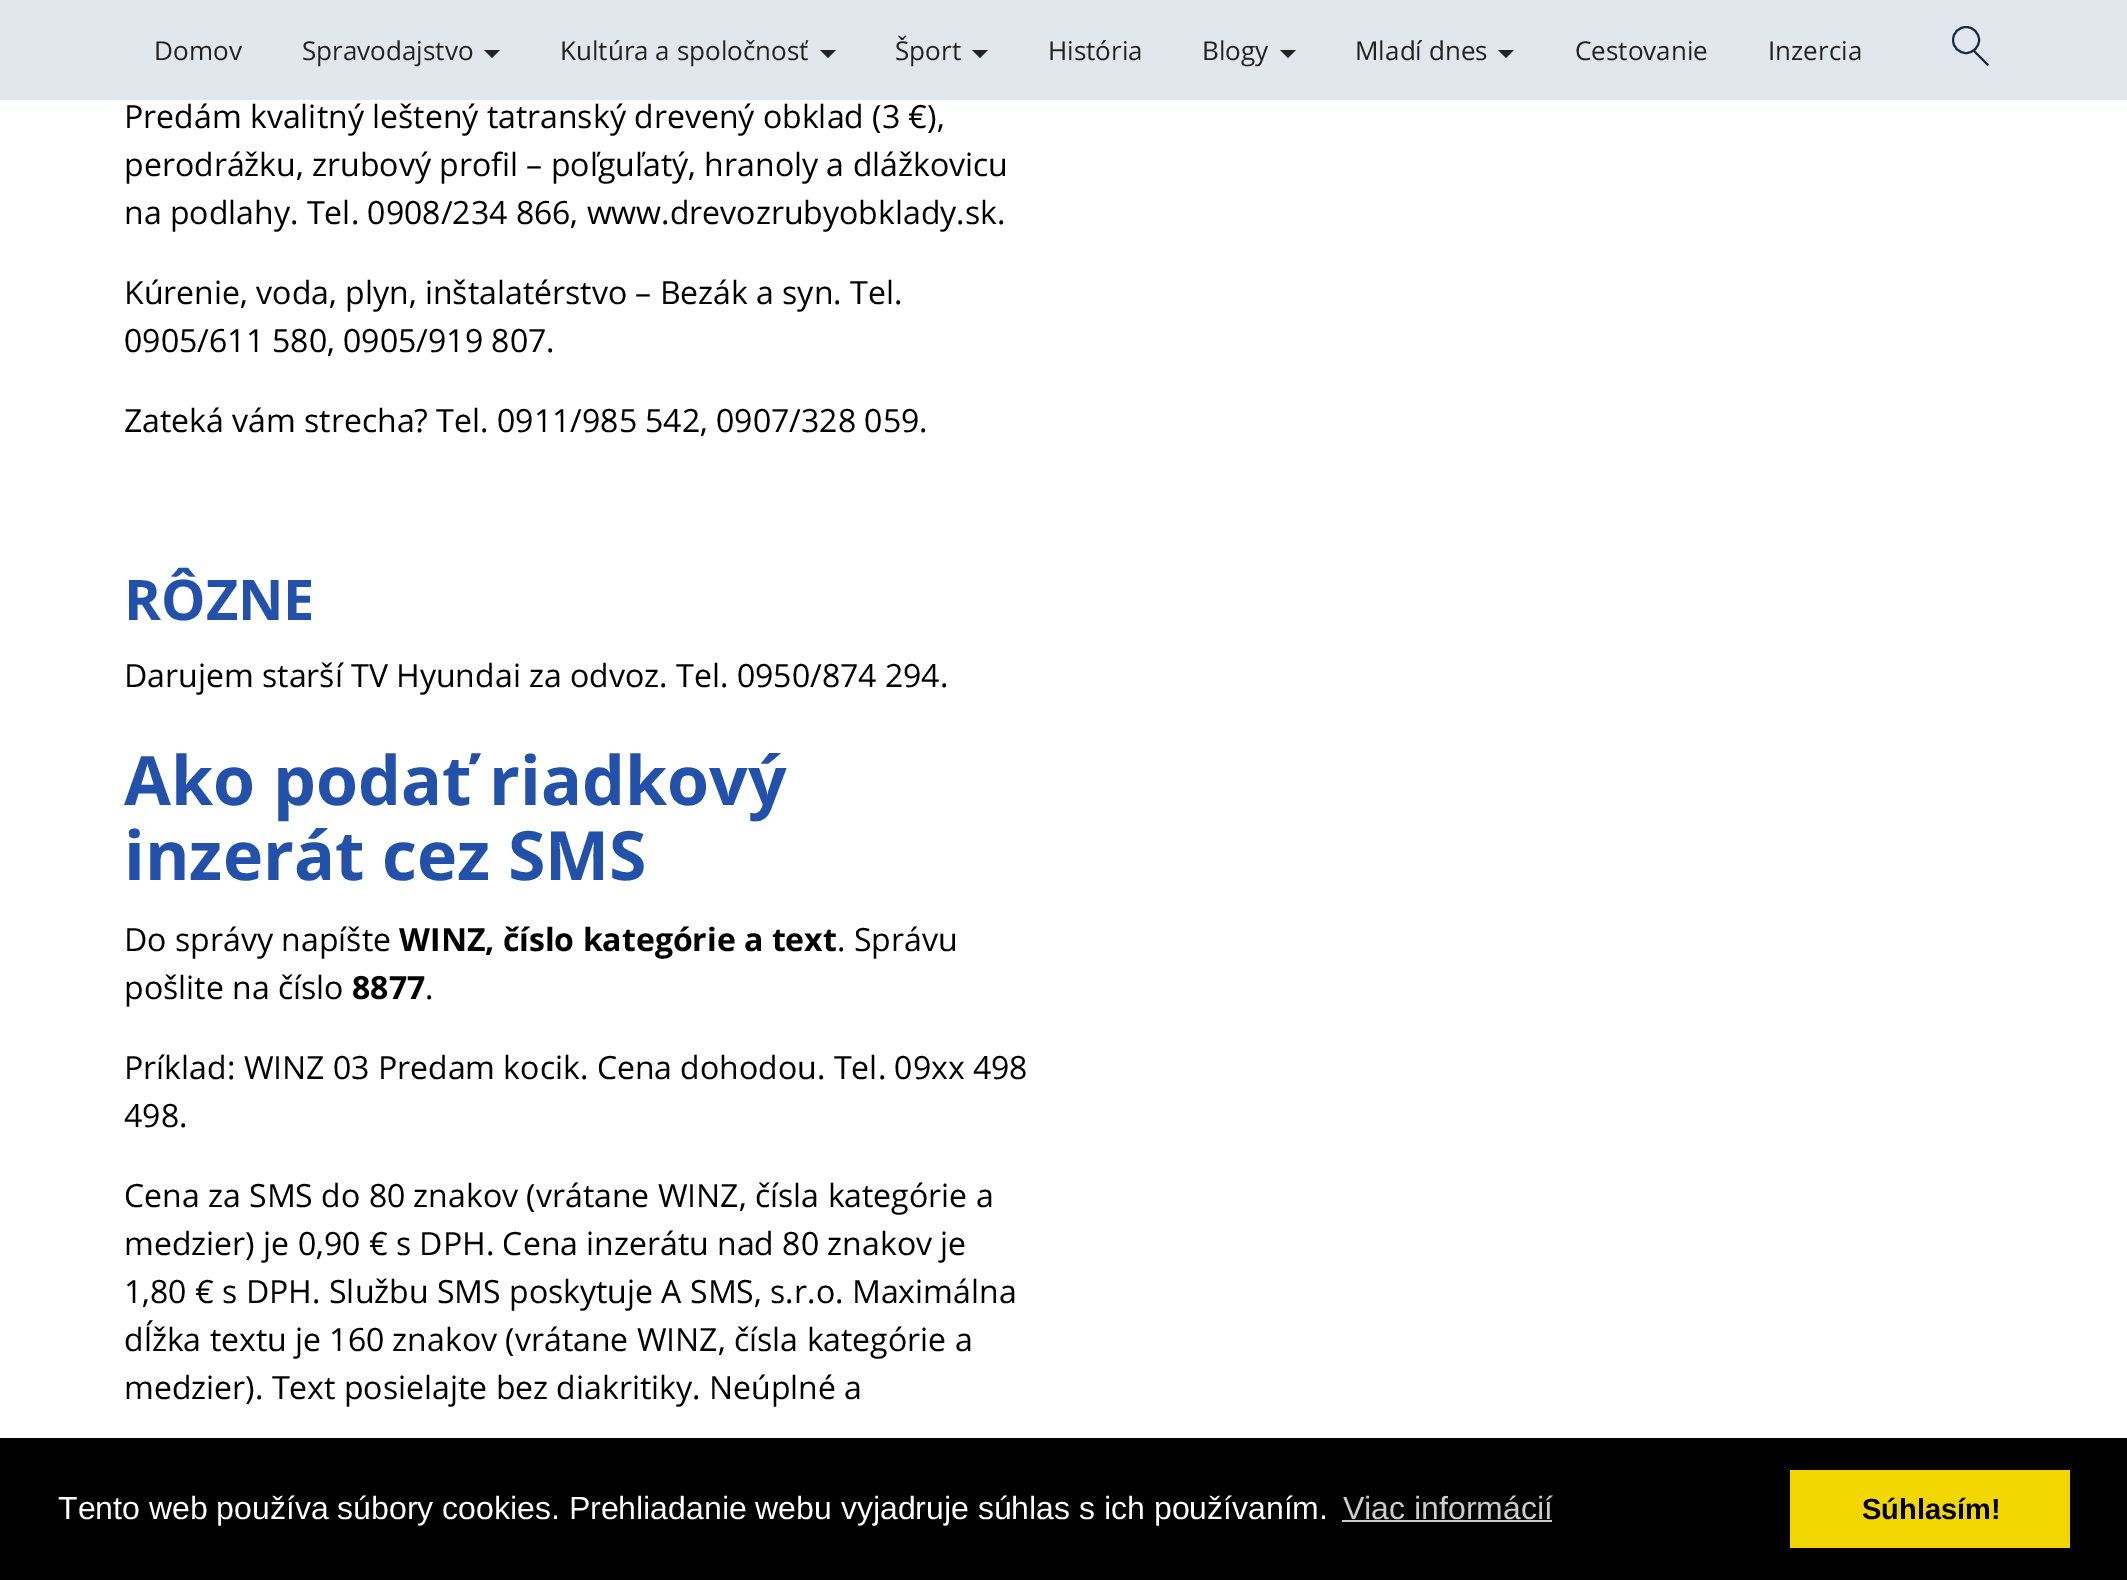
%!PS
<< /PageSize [2127 1580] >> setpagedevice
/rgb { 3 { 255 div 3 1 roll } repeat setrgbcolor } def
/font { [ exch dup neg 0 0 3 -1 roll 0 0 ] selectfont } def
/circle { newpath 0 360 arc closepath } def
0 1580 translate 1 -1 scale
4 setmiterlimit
255 255 255 rgb
0 0 2127 1580 rectfill
226 231 237 rgb
0 0 2127 100 rectfill
34 34 34 rgb
484 50 moveto 500 50 lineto 492 58 lineto closepath fill
820 50 moveto 836 50 lineto 828 58 lineto closepath fill
972 50 moveto 988 50 lineto 980 58 lineto closepath fill
1280 50 moveto 1296 50 lineto 1288 58 lineto closepath fill
1498 50 moveto 1514 50 lineto 1506 58 lineto closepath fill
25 42 70 rgb
2 setlinewidth
1966 40 13 circle stroke
1973 51.5 moveto 1974.5 50 lineto 1989 64.5 lineto 1987.5 66 lineto closepath fill
[
  [0 1438 2127 142 0 0 0]
  [1342 1520 210 2 204 204 204]
  [1790 1470 280 78 241 214 0]
] { aload pop rgb rectfill } forall
/OpenSans-Regular 26 font
34 34 34 rgb
[
  [(Domov) 154 60]
  [(Spravodajstvo) 302 60]
  [(Kultúra a spoločnosť) 560 60]
  [(Šport) 895 60]
  [(História) 1048 60]
  [(Blogy) 1202 60]
  [(Mladí dnes) 1355 60]
  [(Cestovanie) 1575 60]
  [(Inzercia) 1768 60]
] { aload pop moveto show } forall
/OpenSans-Regular 32 font
0 0 0 rgb
[
  [(Predám kvalitný leštený tatranský drevený obklad \(3 €\),) 124 128]
  [(perodrážku, zrubový profil – poľguľatý, hranoly a dlážkovicu) 124 176]
  [(na podlahy. Tel. 0908/234 866, www.drevozrubyobklady.sk.) 124 224]
  [(Kúrenie, voda, plyn, inštalatérstvo – Bezák a syn. Tel.) 124 304]
  [(0905/611 580, 0905/919 807.) 124 352]
  [(Zateká vám strecha? Tel. 0911/985 542, 0907/328 059.) 124 432]
] { aload pop moveto show } forall
/OpenSans-Bold 56 font
35 81 169 rgb
124 620 moveto (RÔZNE) show
/OpenSans-Regular 32 font
0 0 0 rgb
124 687 moveto (Darujem starší TV Hyundai za odvoz. Tel. 0950/874 294.) show
/OpenSans-Bold 68 font
35 81 169 rgb
124 805 moveto (Ako podať riadkový) show
124 880 moveto (inzerát cez SMS) show
/OpenSans-Regular 32 font
0 0 0 rgb
124 951 moveto (Do správy napíšte) show
/OpenSans-Bold 32 font
399 951 moveto (WINZ, číslo kategórie a text) show
/OpenSans-Regular 32 font
837 951 moveto (. Správu) show
124 999 moveto (pošlite na číslo) show
/OpenSans-Bold 32 font
352 999 moveto (8877) show
/OpenSans-Regular 32 font
[
  [(.) 425 999]
  [(Príklad: WINZ 03 Predam kocik. Cena dohodou. Tel. 09xx 498) 124 1079]
  [(498.) 124 1127]
  [(Cena za SMS do 80 znakov \(vrátane WINZ, čísla kategórie a) 124 1207]
  [(medzier\) je 0,90 € s DPH. Cena inzerátu nad 80 znakov je) 124 1255]
  [(1,80 € s DPH. Službu SMS poskytuje A SMS, s.r.o. Maximálna) 124 1303]
  [(dĺžka textu je 160 znakov \(vrátane WINZ, čísla kategórie a) 124 1351]
  [(medzier\). Text posielajte bez diakritiky. Neúplné a) 124 1399]
] { aload pop moveto show } forall
/LiberationSans-Regular 32 font
255 255 255 rgb
58 1519 moveto (Tento web používa súbory cookies. Prehliadanie webu vyjadruje súhlas s ich používaním.) show
204 204 204 rgb
1343 1519 moveto (Viac informácií) show
/LiberationSans-Bold 29 font
0 0 0 rgb
1862 1519 moveto (Súhlasím!) show
showpage
